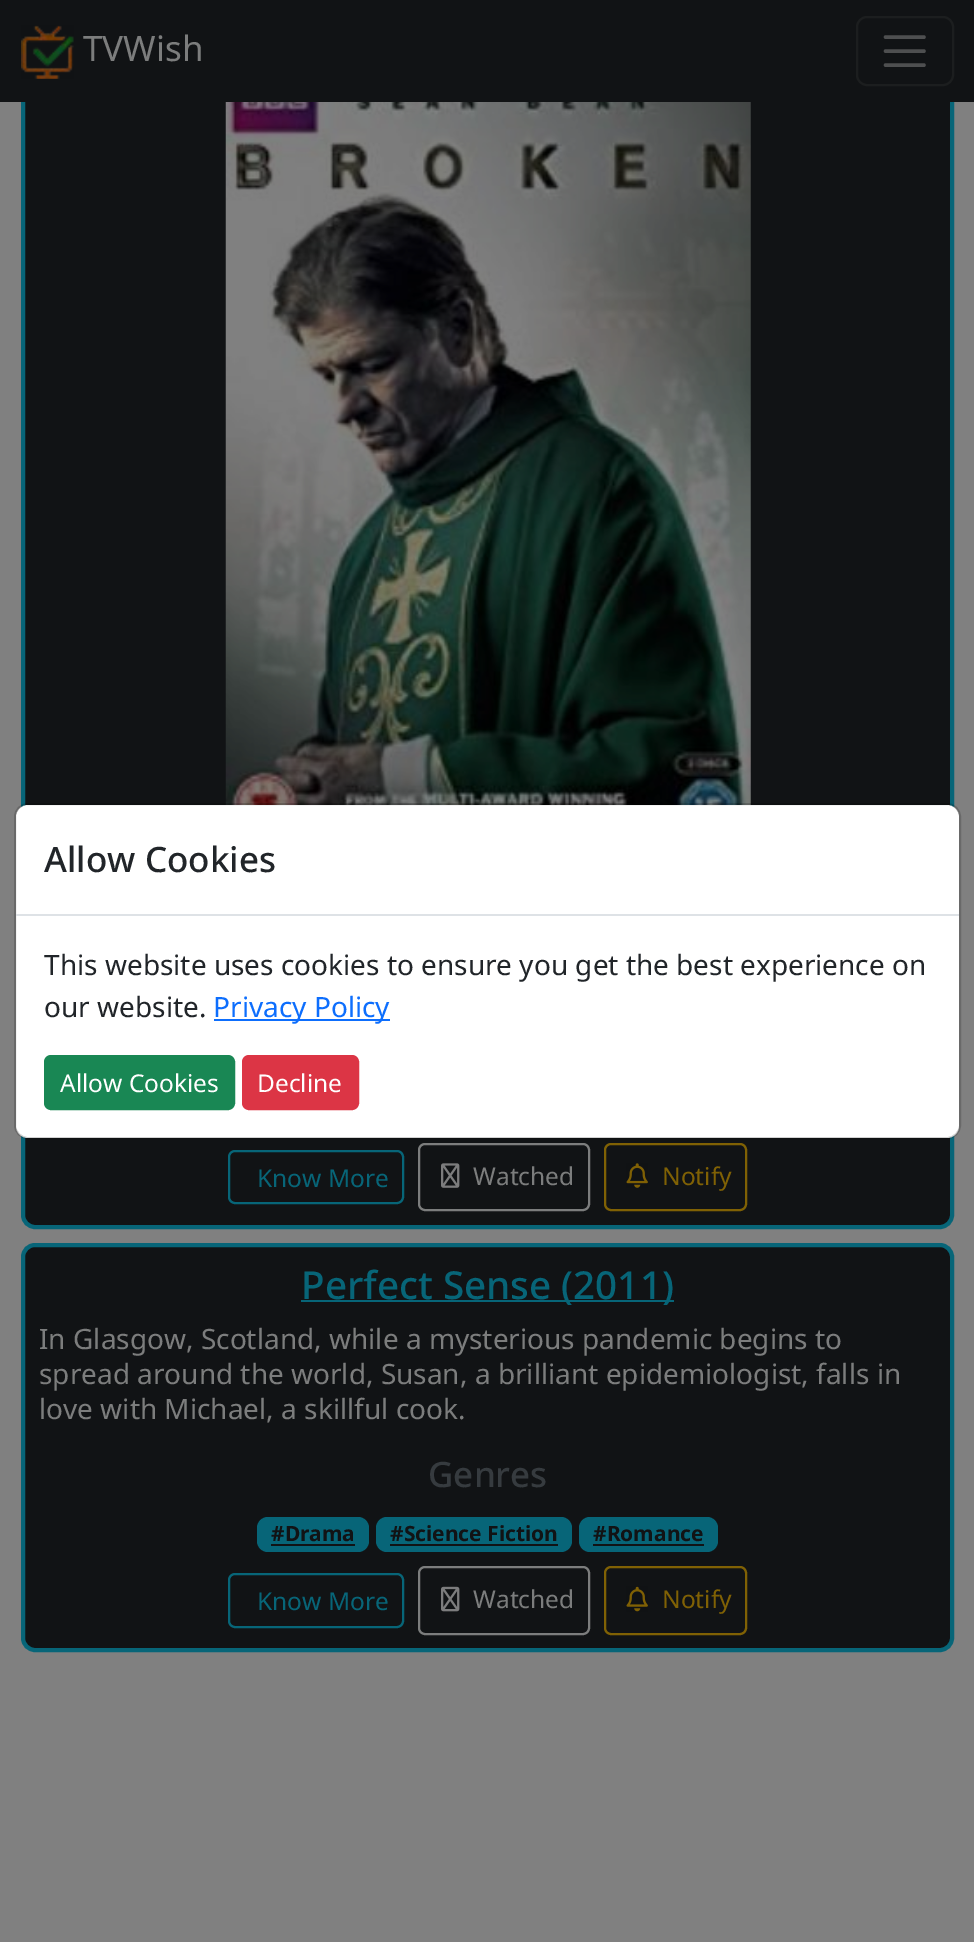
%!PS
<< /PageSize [974 1942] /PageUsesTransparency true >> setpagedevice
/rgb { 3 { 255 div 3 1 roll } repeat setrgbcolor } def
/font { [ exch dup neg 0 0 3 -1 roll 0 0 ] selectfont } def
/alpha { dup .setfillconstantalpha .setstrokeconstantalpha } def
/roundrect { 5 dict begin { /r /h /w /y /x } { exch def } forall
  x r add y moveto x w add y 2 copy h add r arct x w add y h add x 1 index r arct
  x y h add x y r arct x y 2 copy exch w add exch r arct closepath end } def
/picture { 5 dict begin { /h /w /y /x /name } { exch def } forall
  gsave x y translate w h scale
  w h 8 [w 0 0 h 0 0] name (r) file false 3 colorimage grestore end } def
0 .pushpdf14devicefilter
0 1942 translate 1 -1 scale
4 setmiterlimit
128 128 128 rgb
0 0 974 1942 rectfill
17 19 21 rgb
23 70 929 1157 12 roundrect gsave fill grestore
7 101 120 rgb
4 setlinewidth
stroke
17 19 21 rgb
0 0 974 102 rectfill
(img/1.rgb) 21 25 53 54 picture
28 30 31 rgb
2 setlinewidth
857 17 96 68 10 roundrect stroke
78 79 80 rgb
3.5 setlinewidth
1 setlinecap
885.5 37 moveto 924 37 lineto 885.5 51 moveto 924 51 lineto 885.5 65 moveto 924 65 lineto stroke
255 255 255 rgb
16 805 943 333 12 roundrect fill
(img/2.rgb) 225 102 526 703 picture
0.18 alpha
0 0 0 rgb
2 setlinewidth
0 setlinecap
15 804 945 334 13 roundrect stroke
1 alpha
222 226 230 rgb
16 914 943 2 rectfill
13 110 253 rgb
214 1019 176 2 rectfill
25 135 84 rgb
45 1056 189 53 6 roundrect gsave fill grestore
stroke
220 53 69 rgb
243 1056 115 53 6 roundrect gsave fill grestore
stroke
7 101 120 rgb
229 1151 174 52 6 roundrect stroke
124 125 125 rgb
419 1144 170 66 6 roundrect stroke
(img/3.rgb) 441 1163 19 25 picture
128 97 4 rgb
605 1144 141 66 6 roundrect stroke
(img/4.rgb) 626 1163 22 25 picture
17 19 21 rgb
23 1245 929 405 12 roundrect gsave fill grestore
7 101 120 rgb
4 setlinewidth
stroke
301 1300 373 2 rectfill
257 1517 112 35 11 roundrect fill
17 19 21 rgb
271 1544 84 2 rectfill
7 101 120 rgb
376 1517 196 35 11 roundrect fill
17 19 21 rgb
390 1544 168 2 rectfill
7 101 120 rgb
579 1517 139 35 11 roundrect fill
17 19 21 rgb
593 1544 111 2 rectfill
7 101 120 rgb
2 setlinewidth
229 1574 174 53 6 roundrect stroke
124 125 125 rgb
419 1567 170 67 6 roundrect stroke
(img/5.rgb) 441 1586 19 26 picture
128 97 4 rgb
605 1567 141 67 6 roundrect stroke
(img/6.rgb) 626 1586 22 26 picture
/NotoSans-Regular 35 font
124 125 125 rgb
83 61 moveto (TVWish) show
/NotoSans-Medium 35 font
33 37 41 rgb
44 872 moveto (Allow Cookies) show
/NotoSans-Regular 28 font
44 975 moveto (This website uses cookies to ensure you get the best experience on) show
44 1017 moveto (our website.) show
13 110 253 rgb
213 1017 moveto (Privacy Policy) show
/NotoSans-Regular 24.5 font
255 255 255 rgb
60 1092 moveto (Allow Cookies) show
257 1092 moveto (Decline) show
7 101 120 rgb
257 1187 moveto (Know More) show
124 125 125 rgb
473 1185 moveto (Watched) show
128 97 4 rgb
662 1185 moveto (Notify) show
/NotoSans-Medium 38.6 font
7 101 120 rgb
301 1299 moveto (Perfect Sense \(2011\)) show
/NotoSans-Regular 28 font
124 125 125 rgb
[
  [(In Glasgow, Scotland, while a mysterious pandemic begins to) 39 1349]
  [(spread around the world, Susan, a brilliant epidemiologist, falls in) 39 1384]
  [(love with Michael, a skillful cook.) 39 1419]
] { aload pop moveto show } forall
/NotoSans-Medium 35 font
54 59 63 rgb
428 1487 moveto (Genres) show
/NotoSans-Bold 21 font
17 19 21 rgb
[
  [(#Drama) 271 1541]
  [(#Science Fiction) 390 1541]
  [(#Romance) 593 1541]
] { aload pop moveto show } forall
/NotoSans-Regular 24.5 font
7 101 120 rgb
257 1610 moveto (Know More) show
124 125 125 rgb
473 1608 moveto (Watched) show
128 97 4 rgb
662 1608 moveto (Notify) show
.poppdf14devicefilter showpage
